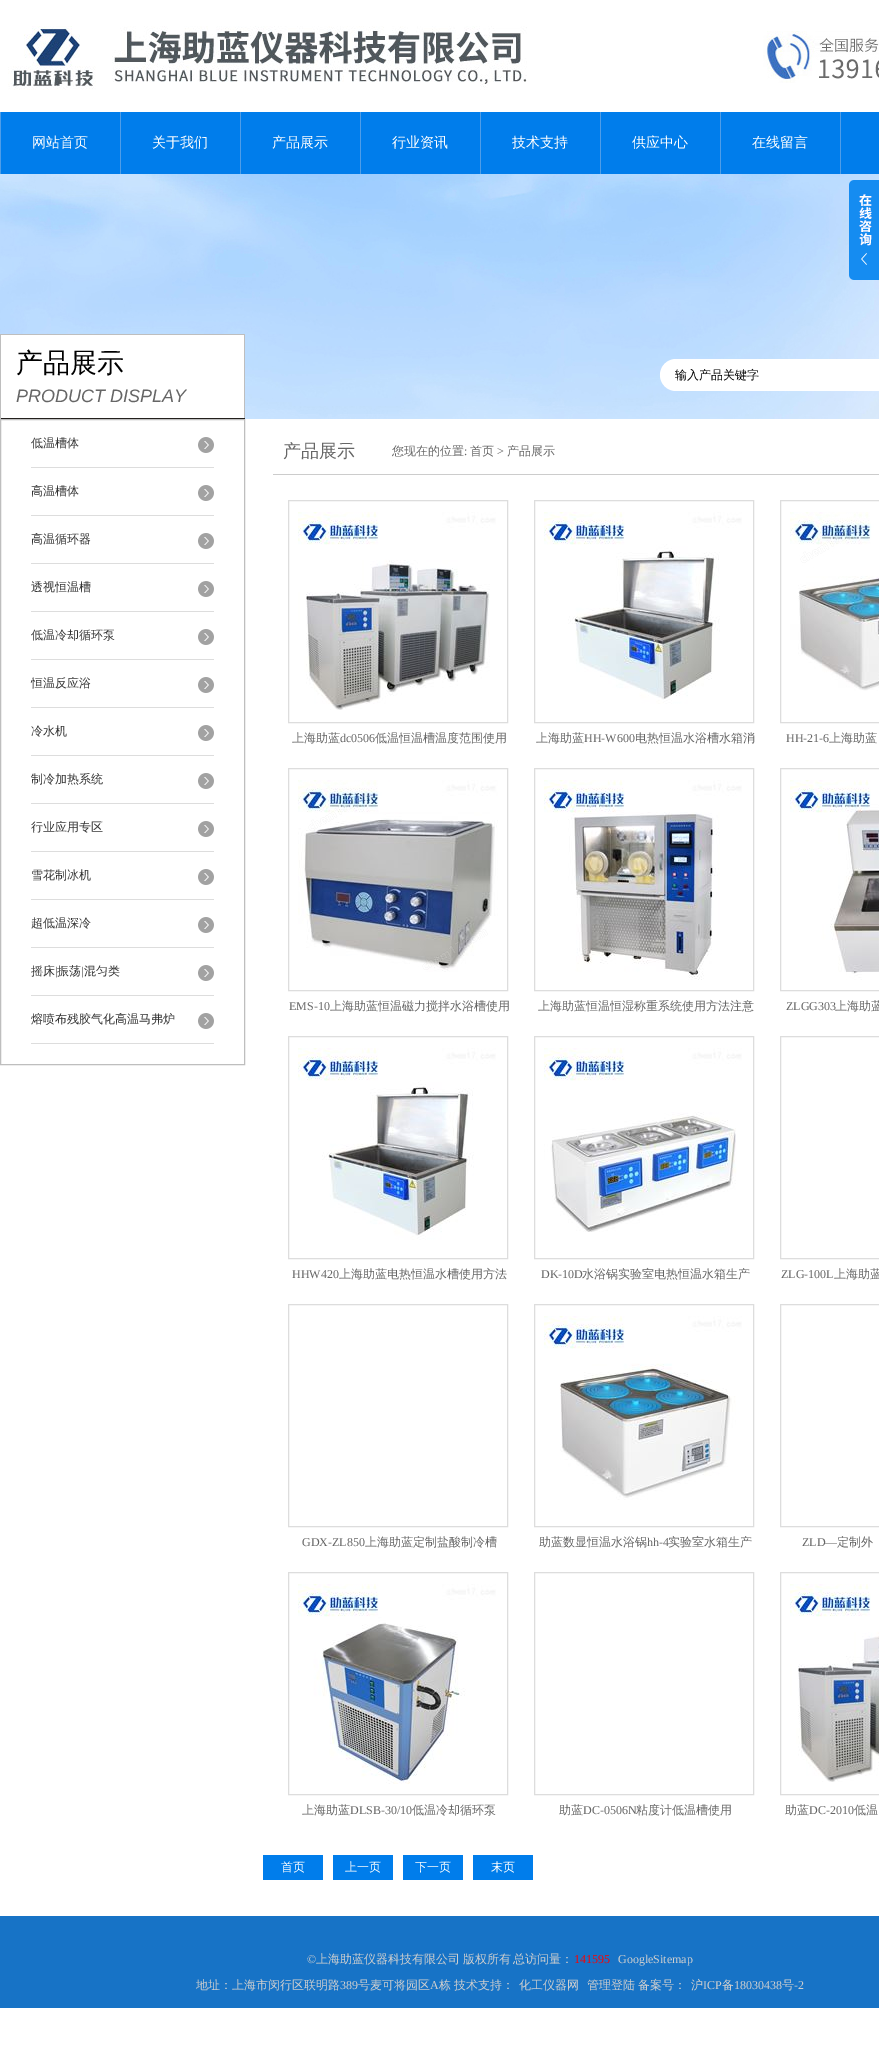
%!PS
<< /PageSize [879 2051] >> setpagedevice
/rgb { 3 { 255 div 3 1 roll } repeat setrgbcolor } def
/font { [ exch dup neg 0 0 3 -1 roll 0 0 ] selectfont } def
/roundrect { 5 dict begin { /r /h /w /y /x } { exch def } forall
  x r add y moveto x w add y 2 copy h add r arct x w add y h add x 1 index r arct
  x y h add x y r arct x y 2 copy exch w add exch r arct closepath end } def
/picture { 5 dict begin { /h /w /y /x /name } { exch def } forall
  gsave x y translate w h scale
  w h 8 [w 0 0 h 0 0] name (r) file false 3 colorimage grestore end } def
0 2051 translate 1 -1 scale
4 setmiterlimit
255 255 255 rgb
0 0 879 2051 rectfill
(img/1.rgb) 8 26 519 64 picture
(img/2.rgb) 763 31 116 52 picture
0 125 235 rgb
1 112 878 62 rectfill
(img/3.rgb) 0 112 1 62 picture
(img/3.rgb) 120 112 1 62 picture
(img/3.rgb) 240 112 1 62 picture
(img/3.rgb) 360 112 1 62 picture
(img/3.rgb) 480 112 1 62 picture
(img/3.rgb) 600 112 1 62 picture
(img/3.rgb) 720 112 1 62 picture
(img/3.rgb) 840 112 1 62 picture
(img/4.rgb) 0 174 879 245 picture
(img/5.rgb) 849 180 30 100 picture
[
  [1 335 243 83 255 255 255]
  [0 334 245 1 190 190 190]
  [244 334 1 85 190 190 190]
  [0 418 245 1 35 32 29]
  [0 334 1 85 190 190 190]
] { aload pop rgb rectfill } forall
255 255 255 rgb
660 359 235 32 16 roundrect fill
190 190 190 rgb
0.5 419.5 244 645 rectstroke
(img/6.rgb) 198 437 16 16 picture
221 221 221 rgb
31 467 183 1 rectfill
(img/6.rgb) 198 485 16 16 picture
31 515 183 1 rectfill
(img/6.rgb) 198 533 16 16 picture
31 563 183 1 rectfill
(img/6.rgb) 198 581 16 16 picture
31 611 183 1 rectfill
(img/6.rgb) 198 629 16 16 picture
31 659 183 1 rectfill
(img/6.rgb) 198 677 16 16 picture
31 707 183 1 rectfill
(img/6.rgb) 198 725 16 16 picture
31 755 183 1 rectfill
(img/6.rgb) 198 773 16 16 picture
31 803 183 1 rectfill
(img/6.rgb) 198 821 16 16 picture
31 851 183 1 rectfill
(img/6.rgb) 198 869 16 16 picture
31 899 183 1 rectfill
(img/6.rgb) 198 917 16 16 picture
31 947 183 1 rectfill
(img/6.rgb) 198 965 16 16 picture
31 995 183 1 rectfill
(img/6.rgb) 198 1013 16 16 picture
31 1043 183 1 rectfill
204 204 204 rgb
273 474 606 1 rectfill
221 221 221 rgb
288.5 500.5 219 222 rectstroke
(img/7.rgb) 298 512 198 198 picture
534.5 500.5 219 222 rectstroke
(img/8.rgb) 544 512 198 192 picture
780.5 500.5 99 222 rectstroke
(img/9.rgb) 790 512 89 179 picture
288.5 768.5 219 222 rectstroke
(img/10.rgb) 298 780 200 192 picture
534.5 768.5 219 222 rectstroke
(img/11.rgb) 544 780 198 200 picture
780.5 768.5 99 222 rectstroke
(img/12.rgb) 790 780 89 200 picture
288.5 1036.5 219 222 rectstroke
(img/8.rgb) 298 1048 198 192 picture
534.5 1036.5 219 222 rectstroke
(img/13.rgb) 544 1048 198 184 picture
780.5 1036.5 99 222 rectstroke
288.5 1304.5 219 222 rectstroke
534.5 1304.5 219 222 rectstroke
(img/14.rgb) 544 1316 198 184 picture
780.5 1304.5 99 222 rectstroke
288.5 1572.5 219 222 rectstroke
(img/15.rgb) 298 1584 198 200 picture
534.5 1572.5 219 222 rectstroke
780.5 1572.5 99 222 rectstroke
(img/16.rgb) 790 1584 89 198 picture
[
  [263 1855 60 25 0 125 235]
  [333 1855 60 25 0 125 235]
  [403 1855 60 25 0 125 235]
  [473 1855 60 25 0 125 235]
  [0 1916 879 92 23 115 198]
] { aload pop rgb rectfill } forall
/WenQuanYiZenHei-Medium 14 font
255 255 255 rgb
[
  [(网站首页) 32 147]
  [(关于我们) 152 147]
  [(产品展示) 272 147]
  [(行业资讯) 392 147]
  [(技术支持) 512 147]
  [(供应中心) 632 147]
  [(在线留言) 752 147]
] { aload pop moveto show } forall
/WenQuanYiZenHei-Medium 27 font
0 0 0 rgb
16 372 moveto (产品展示) show
/LiberationSans-Italic 18 font
102 102 102 rgb
16 402 moveto (PRODUCT DISPLAY) show
/WenQuanYiZenHei-Medium 12 font
0 0 0 rgb
675 379 moveto (输入产品关键字) show
51 51 51 rgb
[
  [(低温槽体) 31 447]
  [(高温槽体) 31 495]
  [(高温循环器) 31 543]
  [(透视恒温槽) 31 591]
  [(低温冷却循环泵) 31 639]
  [(恒温反应浴) 31 687]
  [(冷水机) 31 735]
  [(制冷加热系统) 31 783]
  [(行业应用专区) 31 831]
  [(雪花制冰机) 31 879]
  [(超低温深冷) 31 927]
  [(摇床) 31 975]
] { aload pop moveto show } forall
/LiberationSerif-Regular 12 font
55 975 moveto (|) show
/WenQuanYiZenHei-Medium 12 font
57 975 moveto (振荡) show
/LiberationSerif-Regular 12 font
81 975 moveto (|) show
/WenQuanYiZenHei-Medium 12 font
84 975 moveto (混匀类) show
31 1023 moveto (熔喷布残胶气化高温马弗炉) show
/WenQuanYiZenHei-Medium 18 font
102 102 102 rgb
283 457 moveto (产品展示) show
/WenQuanYiZenHei-Medium 12 font
392 455 moveto (您现在的位置) show
/LiberationSerif-Regular 12 font
464 455 moveto (:) show
/WenQuanYiZenHei-Medium 12 font
470 455 moveto (首页) show
/LiberationSerif-Regular 12 font
497 455 moveto (>) show
/WenQuanYiZenHei-Medium 12 font
507 455 moveto (产品展示) show
292 742 moveto (上海助蓝) show
/LiberationSerif-Regular 12 font
340 742 moveto (dc0506) show
/WenQuanYiZenHei-Medium 12 font
375 742 moveto (低温恒温槽温度范围使用) show
536 742 moveto (上海助蓝) show
/LiberationSerif-Regular 12 font
584 742 moveto (HH-W600) show
/WenQuanYiZenHei-Medium 12 font
635 742 moveto (电热恒温水浴槽水箱消) show
/LiberationSerif-Regular 12 font
786 742 moveto (HH-21-6) show
/WenQuanYiZenHei-Medium 12 font
829 742 moveto (上海助蓝) show
/LiberationSerif-Regular 12 font
289 1010 moveto (EMS-10) show
/WenQuanYiZenHei-Medium 12 font
330 1010 moveto (上海助蓝恒温磁力搅拌水浴槽使用) show
538 1010 moveto (上海助蓝恒温恒湿称重系统使用方法注意) show
/LiberationSerif-Regular 12 font
786 1010 moveto (ZLGG303) show
/WenQuanYiZenHei-Medium 12 font
835 1010 moveto (上海助蓝) show
/LiberationSerif-Regular 12 font
292 1278 moveto (HHW420) show
/WenQuanYiZenHei-Medium 12 font
339 1278 moveto (上海助蓝电热恒温水槽使用方法) show
/LiberationSerif-Regular 12 font
541 1278 moveto (DK-10D) show
/WenQuanYiZenHei-Medium 12 font
582 1278 moveto (水浴锅实验室电热恒温水箱生产) show
/LiberationSerif-Regular 12 font
781 1278 moveto (ZLG-100L) show
/WenQuanYiZenHei-Medium 12 font
834 1278 moveto (上海助蓝) show
/LiberationSerif-Regular 12 font
302 1546 moveto (GDX-ZL850) show
/WenQuanYiZenHei-Medium 12 font
365 1546 moveto (上海助蓝定制盐酸制冷槽) show
539 1546 moveto (助蓝数显恒温水浴锅) show
/LiberationSerif-Regular 12 font
647 1546 moveto (hh-4) show
/WenQuanYiZenHei-Medium 12 font
668 1546 moveto (实验室水箱生产) show
/LiberationSerif-Regular 12 font
802 1546 moveto (ZLD—) show
/WenQuanYiZenHei-Medium 12 font
837 1546 moveto (定制外) show
302 1814 moveto (上海助蓝) show
/LiberationSerif-Regular 12 font
350 1814 moveto (DLSB-30/10) show
/WenQuanYiZenHei-Medium 12 font
412 1814 moveto (低温冷却循环泵) show
559 1814 moveto (助蓝) show
/LiberationSerif-Regular 12 font
583 1814 moveto (DC-0506N) show
/WenQuanYiZenHei-Medium 12 font
636 1814 moveto (粘度计低温槽使用) show
785 1814 moveto (助蓝) show
/LiberationSerif-Regular 12 font
809 1814 moveto (DC-2010) show
/WenQuanYiZenHei-Medium 12 font
854 1814 moveto (低温) show
255 255 255 rgb
[
  [(首页) 281 1871]
  [(上一页) 345 1871]
  [(下一页) 415 1871]
  [(末页) 491 1871]
] { aload pop moveto show } forall
/LiberationSerif-Regular 12 font
207 207 207 rgb
307 1963 moveto (©) show
/WenQuanYiZenHei-Medium 12 font
316 1963 moveto -1 0 32 (上海助蓝仪器科技有限公司 版权所有 总访问量：) widthshow
/LiberationSerif-Regular 12 font
255 0 0 rgb
574 1963 moveto (141595) show
207 207 207 rgb
618 1963 moveto (GoogleSitemap) show
/WenQuanYiZenHei-Medium 12 font
196 1989 moveto (地址：上海市闵行区联明路) show
/LiberationSerif-Regular 12 font
340 1989 moveto (389) show
/WenQuanYiZenHei-Medium 12 font
358 1989 moveto (号麦可将园区) show
/LiberationSerif-Regular 12 font
430 1989 moveto (A) show
/WenQuanYiZenHei-Medium 12 font
439 1989 moveto -1 0 32 (栋 技术支持：) widthshow
[
  [(化工仪器网) 519 1989]
  [(管理登陆) 587 1989]
  [(备案号：) 638 1989]
  [(沪) 691 1989]
] { aload pop moveto show } forall
/LiberationSerif-Regular 12 font
703 1989 moveto (ICP) show
/WenQuanYiZenHei-Medium 12 font
722 1989 moveto (备) show
/LiberationSerif-Regular 12 font
734 1989 moveto (18030438) show
/WenQuanYiZenHei-Medium 12 font
782 1989 moveto (号) show
/LiberationSerif-Regular 12 font
794 1989 moveto (-2) show
showpage
